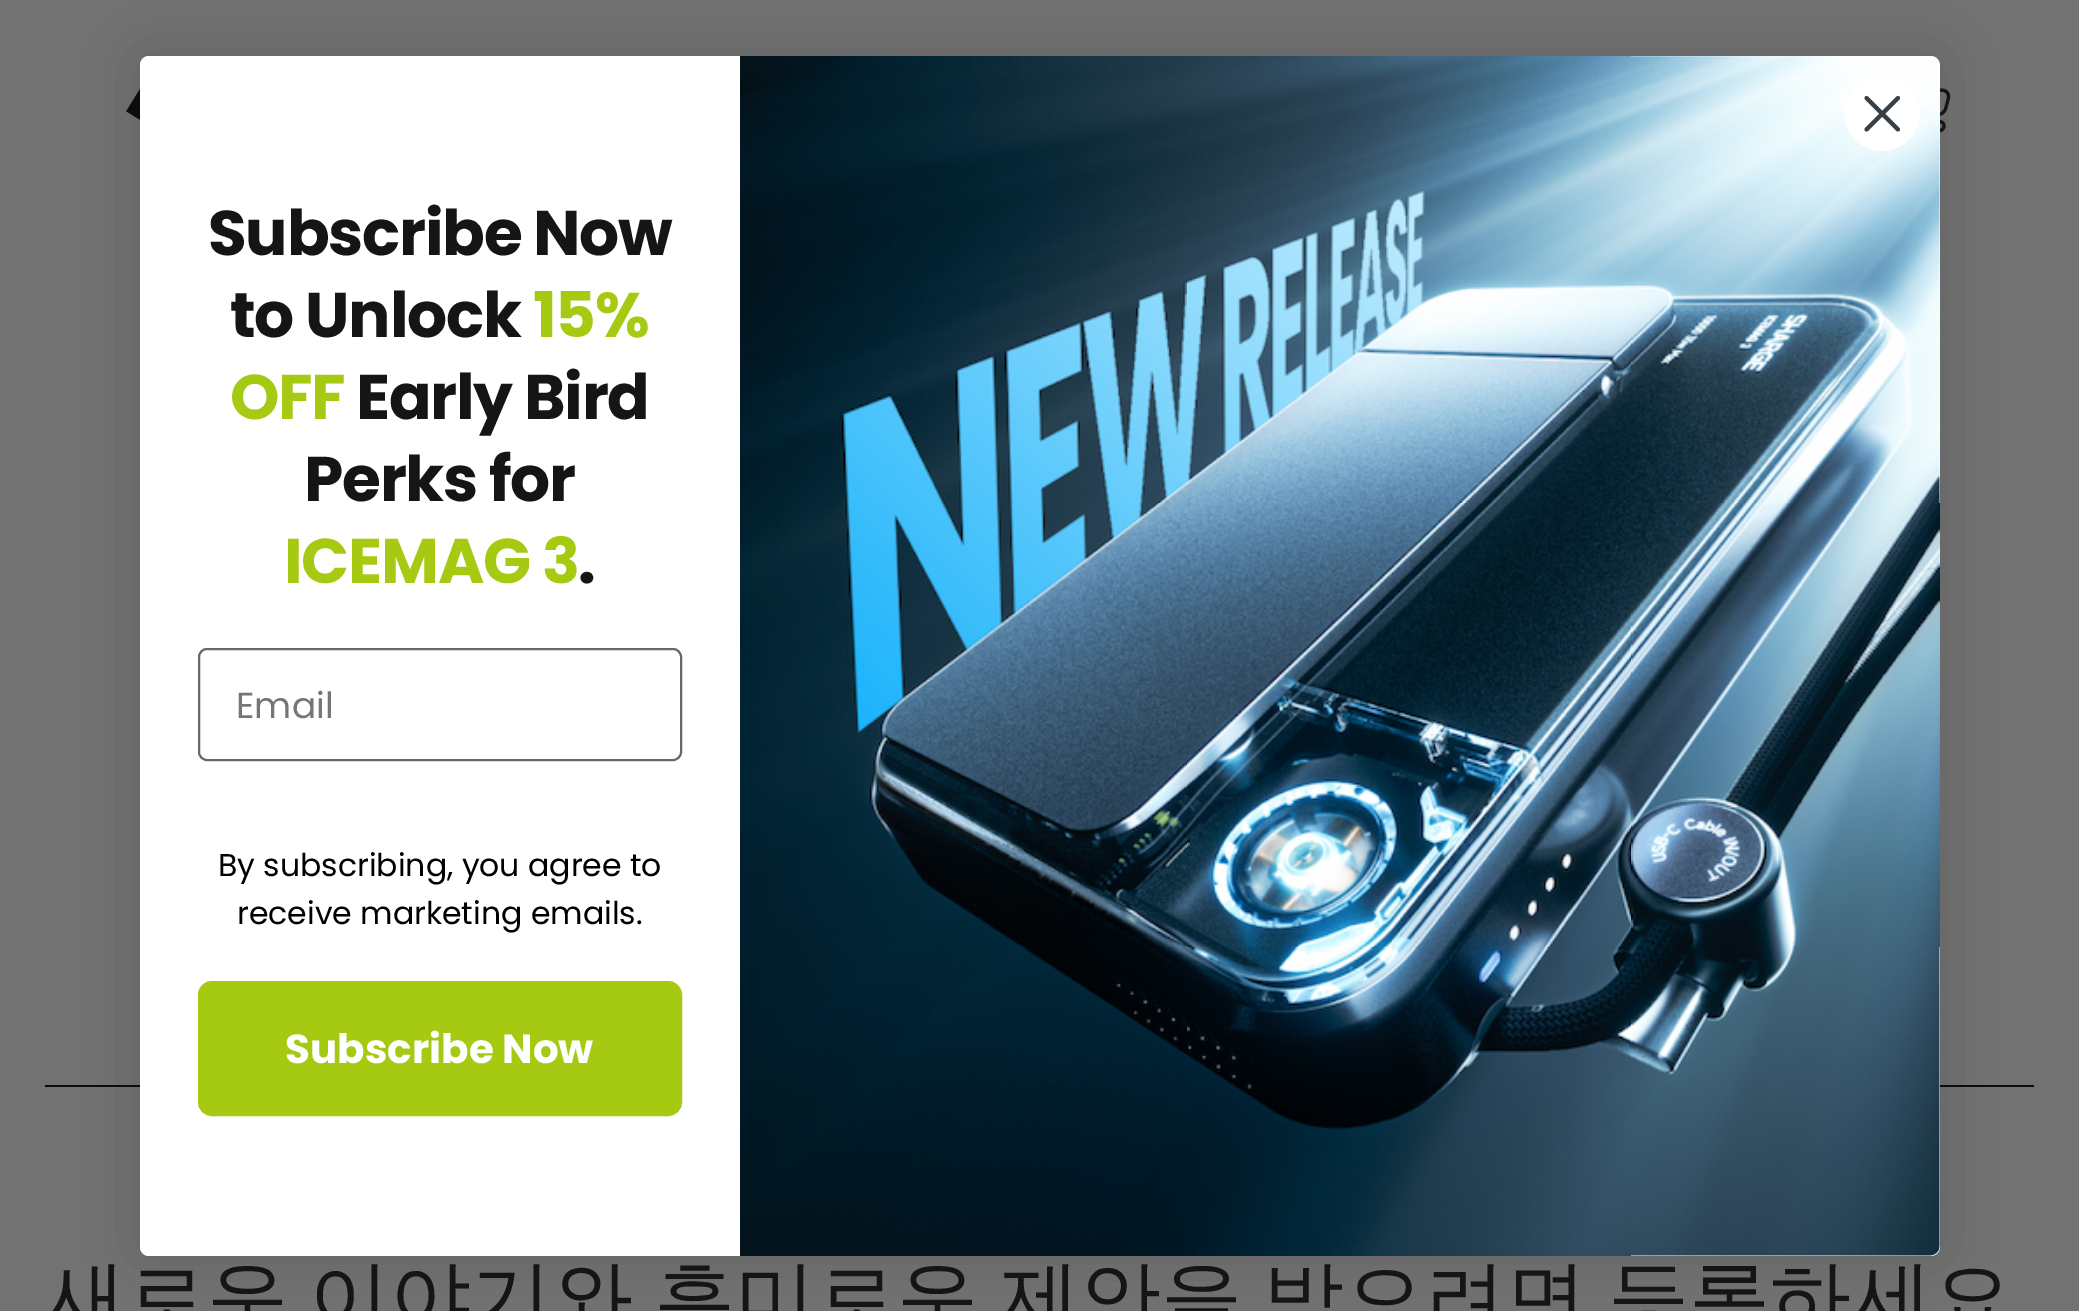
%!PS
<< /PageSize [2079 1311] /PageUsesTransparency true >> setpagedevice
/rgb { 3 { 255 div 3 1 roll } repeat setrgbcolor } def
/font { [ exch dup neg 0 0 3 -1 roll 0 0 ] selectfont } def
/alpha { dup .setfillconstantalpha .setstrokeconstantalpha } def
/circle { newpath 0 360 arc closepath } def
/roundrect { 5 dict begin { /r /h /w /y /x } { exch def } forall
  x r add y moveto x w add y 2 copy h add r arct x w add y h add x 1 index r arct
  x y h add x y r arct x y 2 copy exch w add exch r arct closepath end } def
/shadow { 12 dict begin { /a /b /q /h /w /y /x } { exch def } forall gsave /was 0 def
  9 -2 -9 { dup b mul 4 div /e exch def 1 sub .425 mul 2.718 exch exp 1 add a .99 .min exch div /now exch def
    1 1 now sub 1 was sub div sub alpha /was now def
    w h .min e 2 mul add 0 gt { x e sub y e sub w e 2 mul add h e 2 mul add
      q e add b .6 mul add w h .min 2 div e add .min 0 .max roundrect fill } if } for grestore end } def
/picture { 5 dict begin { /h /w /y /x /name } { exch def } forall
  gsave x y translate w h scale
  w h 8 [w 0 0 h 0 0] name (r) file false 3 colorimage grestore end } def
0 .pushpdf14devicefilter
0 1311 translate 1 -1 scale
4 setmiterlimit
114 114 114 rgb
0 0 2079 1311 rectfill
(img/1.rgb) 126 88 14 32 picture
(img/2.rgb) 1940 88 11 45 picture
12 12 12 rgb
45 1085 1989 2 rectfill
0 0 0 rgb
140 56 1800 1200 9 34 0.15 shadow
255 255 255 rgb
140 56 1800 1200 9 roundrect fill
(img/3.rgb) 740 56 1200 1200 picture
1882 113.5 37.5 circle fill
55 63 71 rgb
3.9 setlinewidth
1 setlinecap
1 setlinejoin
1866.5 98 moveto 1898 129.5 lineto 1866.5 129.5 moveto 1898 98 lineto closepath stroke
96 106 114 rgb
2 setlinewidth
0 setlinecap
0 setlinejoin
199 649 482 111 8 roundrect stroke
166 201 17 rgb
201.5 984.5 477 128 10.5 roundrect gsave fill grestore
7 setlinewidth
stroke
/Poppins-Bold 63 font
21 21 21 rgb
208 255 moveto -1.25 0 (Subscribe Now) ashow
230 337 moveto -1.25 0 (to Unlock) ashow
166 201 17 rgb
533 337 moveto -1.25 0 (15%) ashow
230 419 moveto -1.25 0 (OFF) ashow
21 21 21 rgb
356 419 moveto -1.25 0 (Early Bird) ashow
304 501 moveto -1.25 0 (Perks for) ashow
166 201 17 rgb
284 583 moveto -1.25 0 (ICEMAG 3) ashow
21 21 21 rgb
578 583 moveto -1.25 0 (.) ashow
/Poppins-Regular 36 font
118 118 118 rgb
236 718 moveto (Email) show
/Poppins-Regular 31.5 font
0 0 0 rgb
218 876 moveto (By subscribing, you agree to) show
237 924 moveto (receive marketing emails.) show
/Poppins-Bold 40.5 font
255 255 255 rgb
285 1063 moveto (Subscribe Now) show
/WenQuanYiZenHei-Medium 81 font
21 21 21 rgb
45 1325 moveto -3.25 0 32 (새로운 이야기와 흥미로운 제안을 받으려면 등록하세요) widthshow
.poppdf14devicefilter showpage
